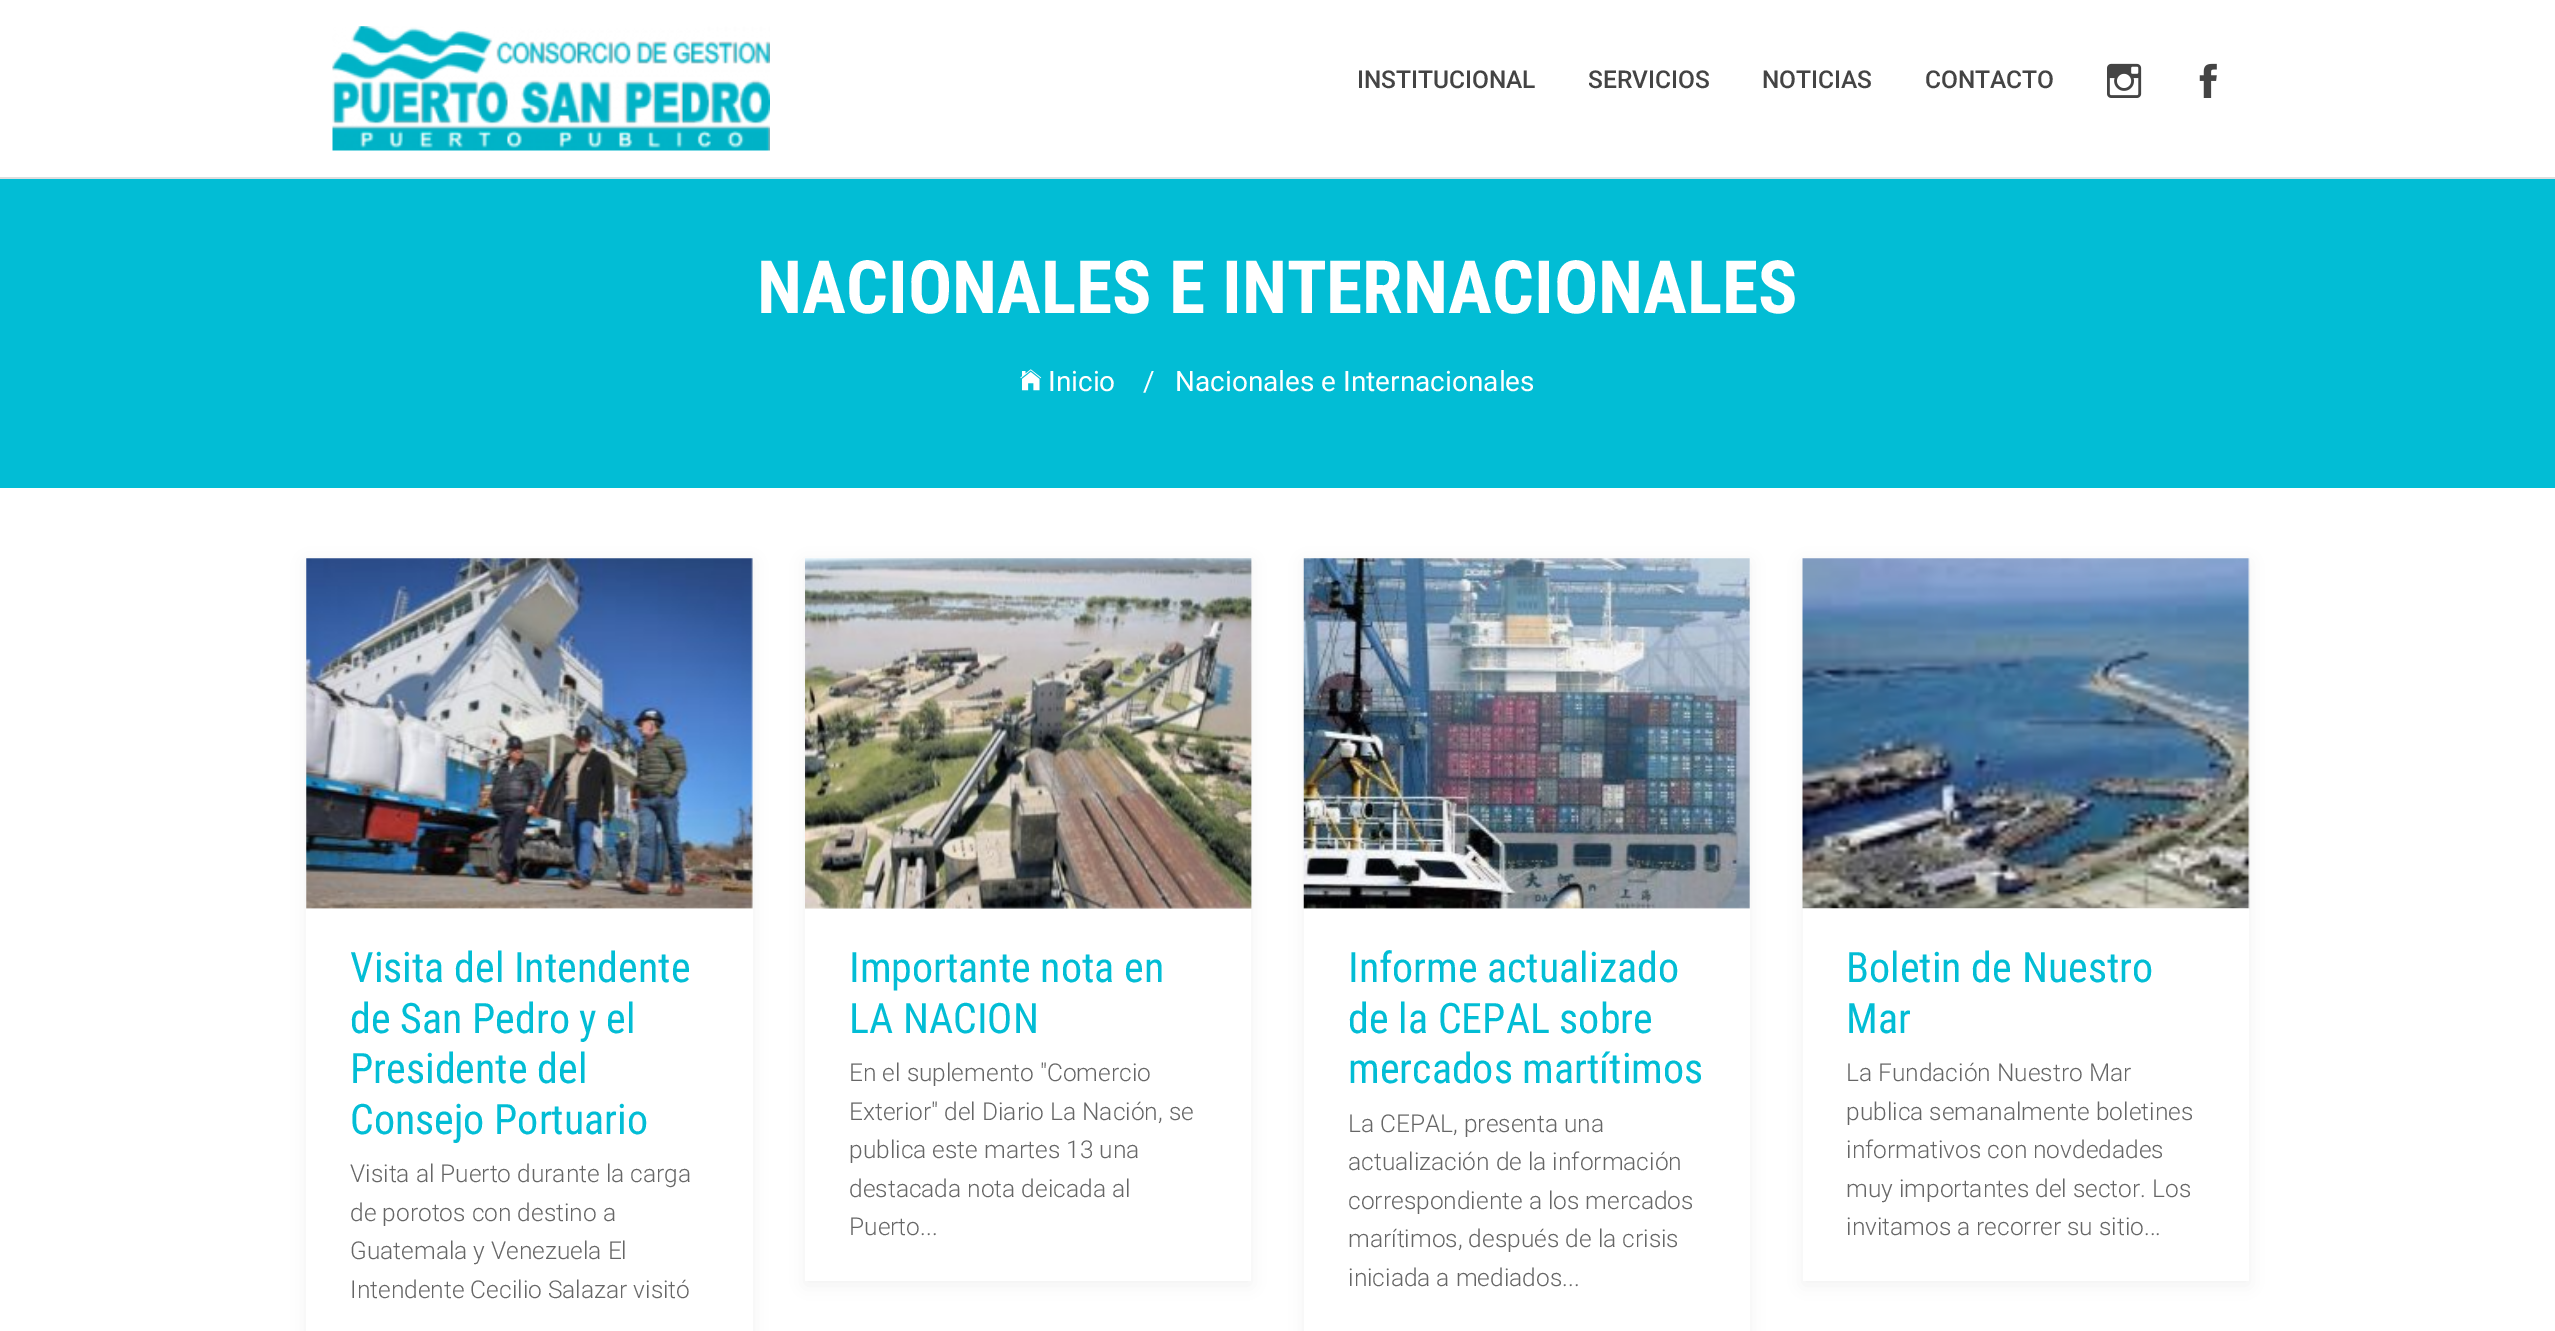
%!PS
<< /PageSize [2555 1331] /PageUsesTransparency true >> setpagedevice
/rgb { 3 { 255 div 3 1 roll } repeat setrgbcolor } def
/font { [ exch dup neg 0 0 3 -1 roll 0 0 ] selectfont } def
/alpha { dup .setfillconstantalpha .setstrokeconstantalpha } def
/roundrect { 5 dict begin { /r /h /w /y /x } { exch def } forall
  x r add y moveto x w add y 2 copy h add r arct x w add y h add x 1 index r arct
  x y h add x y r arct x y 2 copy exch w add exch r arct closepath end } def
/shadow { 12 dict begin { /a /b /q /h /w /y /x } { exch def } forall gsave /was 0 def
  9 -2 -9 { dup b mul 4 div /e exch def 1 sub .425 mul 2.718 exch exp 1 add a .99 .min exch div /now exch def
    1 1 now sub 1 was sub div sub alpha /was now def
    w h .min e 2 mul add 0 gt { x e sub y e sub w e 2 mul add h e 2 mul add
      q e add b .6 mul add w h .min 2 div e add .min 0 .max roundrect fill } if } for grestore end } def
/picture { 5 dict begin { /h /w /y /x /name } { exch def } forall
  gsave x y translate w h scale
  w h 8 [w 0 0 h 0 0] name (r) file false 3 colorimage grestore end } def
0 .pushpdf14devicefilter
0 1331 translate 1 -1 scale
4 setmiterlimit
255 255 255 rgb
0 0 2555 1331 rectfill
222 222 222 rgb
0 177 2555 2 rectfill
(img/1.rgb) 332 26 438 125 picture
(img/2.rgb) 2107 63 35 35 picture
(img/3.rgb) 2199 63 18 35 picture
2 189 213 rgb
0 179 2555 309 rectfill
(img/4.rgb) 1020 369 22 22 picture
0 0 0 rgb
306 562 447 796 0 9 0.06 shadow
255 255 255 rgb
306 558 447 773 rectfill
(img/5.rgb) 306 558 447 351 picture
0 0 0 rgb
805 562 446 723 0 9 0.06 shadow
255 255 255 rgb
805 558 446 723 rectfill
(img/6.rgb) 805 558 447 351 picture
0 0 0 rgb
1304 562 446 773 0 9 0.06 shadow
255 255 255 rgb
1304 558 446 773 rectfill
(img/7.rgb) 1303 558 447 351 picture
0 0 0 rgb
1803 562 446 723 0 9 0.06 shadow
255 255 255 rgb
1803 558 446 723 rectfill
(img/8.rgb) 1802 558 448 351 picture
/Roboto-Medium 24.5 font
68 68 68 rgb
[
  [(INSTITUCIONAL) 1357 88]
  [(SERVICIOS) 1588 88]
  [(NOTICIAS) 1762 88]
  [(CONTACTO) 1925 88]
] { aload pop moveto show } forall
/RobotoCondensed-Bold 73.5 font
255 255 255 rgb
757 313 moveto (NACIONALES E INTERNACIONALES) show
/Roboto-Regular 28 font
[
  [(Inicio) 1048 391]
  [(/) 1143 391]
  [(Nacionales e Internacionales) 1175 391]
] { aload pop moveto show } forall
/RobotoCondensed-Regular 42 font
2 189 213 rgb
[
  [(Visita del Intendente) 350 982]
  [(de San Pedro y el) 350 1033]
  [(Presidente del) 350 1083]
  [(Consejo Portuario) 350 1134]
] { aload pop moveto show } forall
/Roboto-Light 24.5 font
102 102 102 rgb
[
  [(Visita al Puerto durante la carga) 350 1182]
  [(de porotos con destino a) 350 1221]
  [(Guatemala y Venezuela El) 350 1259]
  [(Intendente Cecilio Salazar visitó) 350 1298]
] { aload pop moveto show } forall
/RobotoCondensed-Regular 42 font
2 189 213 rgb
849 982 moveto (Importante nota en) show
849 1033 moveto (LA NACION) show
/Roboto-Light 24.5 font
102 102 102 rgb
[
  [(En el suplemento "Comercio) 849 1081]
  [(Exterior" del Diario La Nación, se) 849 1120]
  [(publica este martes 13 una) 849 1158]
  [(destacada nota deicada al) 849 1197]
  [(Puerto...) 849 1235]
] { aload pop moveto show } forall
/RobotoCondensed-Regular 42 font
2 189 213 rgb
[
  [(Informe actualizado) 1348 982]
  [(de la CEPAL sobre) 1348 1033]
  [(mercados martítimos) 1348 1083]
] { aload pop moveto show } forall
/Roboto-Light 24.5 font
102 102 102 rgb
[
  [(La CEPAL, presenta una) 1348 1132]
  [(actualización de la información) 1348 1170]
  [(correspondiente a los mercados) 1348 1209]
  [(marítimos, después de la crisis) 1348 1247]
  [(iniciada a mediados...) 1348 1286]
] { aload pop moveto show } forall
/RobotoCondensed-Regular 42 font
2 189 213 rgb
1846 982 moveto (Boletin de Nuestro) show
1846 1033 moveto (Mar) show
/Roboto-Light 24.5 font
102 102 102 rgb
[
  [(La Fundación Nuestro Mar) 1846 1081]
  [(publica semanalmente boletines) 1846 1120]
  [(informativos con novdedades) 1846 1158]
  [(muy importantes del sector. Los) 1846 1197]
  [(invitamos a recorrer su sitio...) 1846 1235]
] { aload pop moveto show } forall
.poppdf14devicefilter showpage
